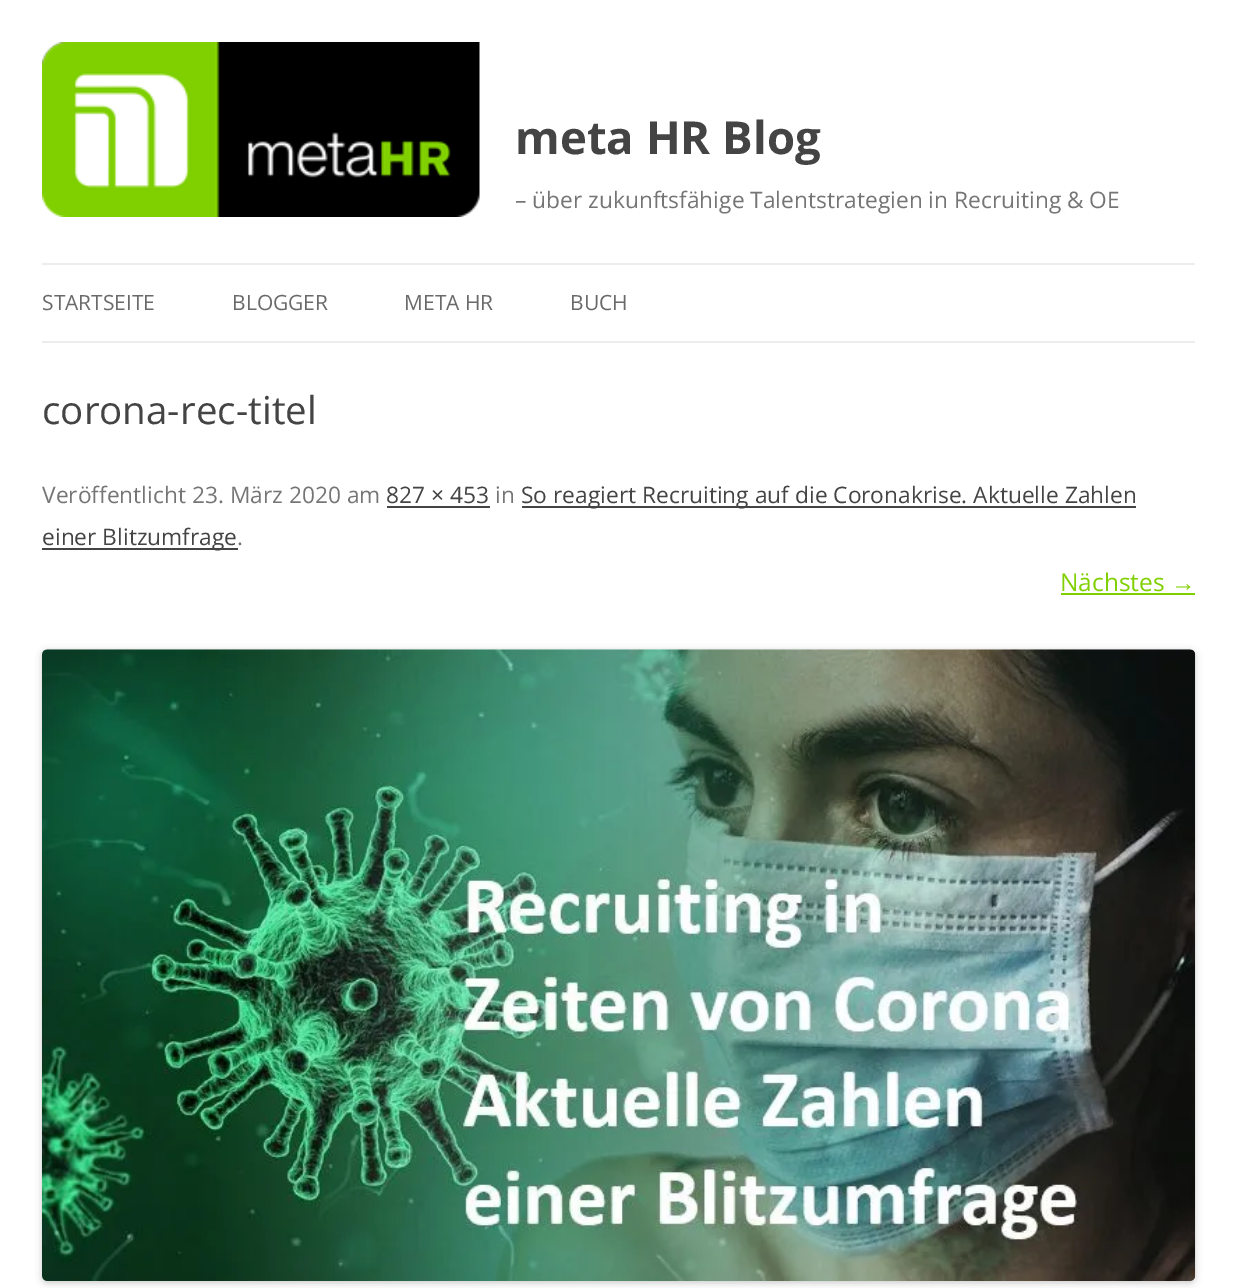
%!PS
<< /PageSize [1237 1288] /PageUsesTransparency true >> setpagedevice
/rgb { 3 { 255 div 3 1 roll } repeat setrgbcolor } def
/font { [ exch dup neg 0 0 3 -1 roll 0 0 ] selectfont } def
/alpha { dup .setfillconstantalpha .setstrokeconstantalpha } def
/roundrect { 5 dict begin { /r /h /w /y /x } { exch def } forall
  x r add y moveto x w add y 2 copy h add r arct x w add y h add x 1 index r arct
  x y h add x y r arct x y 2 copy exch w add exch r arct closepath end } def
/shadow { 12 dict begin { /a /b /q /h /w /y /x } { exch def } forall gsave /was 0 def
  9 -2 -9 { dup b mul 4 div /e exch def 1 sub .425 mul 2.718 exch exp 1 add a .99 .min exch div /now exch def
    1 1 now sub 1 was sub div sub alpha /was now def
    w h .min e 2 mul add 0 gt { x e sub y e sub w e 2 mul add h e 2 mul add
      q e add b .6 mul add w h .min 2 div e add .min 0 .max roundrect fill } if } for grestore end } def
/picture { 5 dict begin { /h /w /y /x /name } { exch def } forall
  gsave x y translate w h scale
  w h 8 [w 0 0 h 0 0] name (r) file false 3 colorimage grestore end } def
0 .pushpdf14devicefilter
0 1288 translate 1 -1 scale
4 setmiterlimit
255 255 255 rgb
0 0 1237 1288 rectfill
(img/1.rgb) 42 42 438 175 picture
[
  [42 263 1153 2 237 237 237]
  [42 341 1153 2 237 237 237]
  [387 506 103 2 68 68 68]
  [522 506 614 2 68 68 68]
  [42 548 196 2 68 68 68]
  [1061 593 134 2 128 208 0]
] { aload pop rgb rectfill } forall
0 0 0 rgb
42 651 1153 632 5 3.5 0.2 shadow
(img/2.rgb) 42 649 1154 632 picture
/OpenSans-Bold 45.5 font
68 68 68 rgb
515 154 moveto (meta HR Blog) show
/OpenSans-Regular 22.75 font
117 117 117 rgb
515 208 moveto (– über zukunftsfähige Talentstrategien in Recruiting & OE) show
/OpenSans-Regular 21 font
106 106 106 rgb
[
  [(STARTSEITE) 42 310]
  [(BLOGGER) 232 310]
  [(META HR) 404 310]
  [(BUCH) 570 310]
] { aload pop moveto show } forall
/OpenSans-Regular 38.5 font
68 68 68 rgb
42 424 moveto (corona-rec-titel) show
/OpenSans-Regular 22.75 font
117 117 117 rgb
42 503 moveto (Veröffentlicht 23. März 2020 am) show
68 68 68 rgb
386 503 moveto (827 × 453) show
117 117 117 rgb
495 503 moveto (in) show
68 68 68 rgb
521 503 moveto (So reagiert Recruiting auf die Coronakrise. Aktuelle Zahlen) show
42 545 moveto (einer Blitzumfrage) show
117 117 117 rgb
237 545 moveto (.) show
/OpenSans-Regular 24.5 font
128 208 0 rgb
1060 591 moveto (Nächstes) show
/LiberationSans-Regular 24.5 font
1171 591 moveto (→) show
.poppdf14devicefilter showpage
